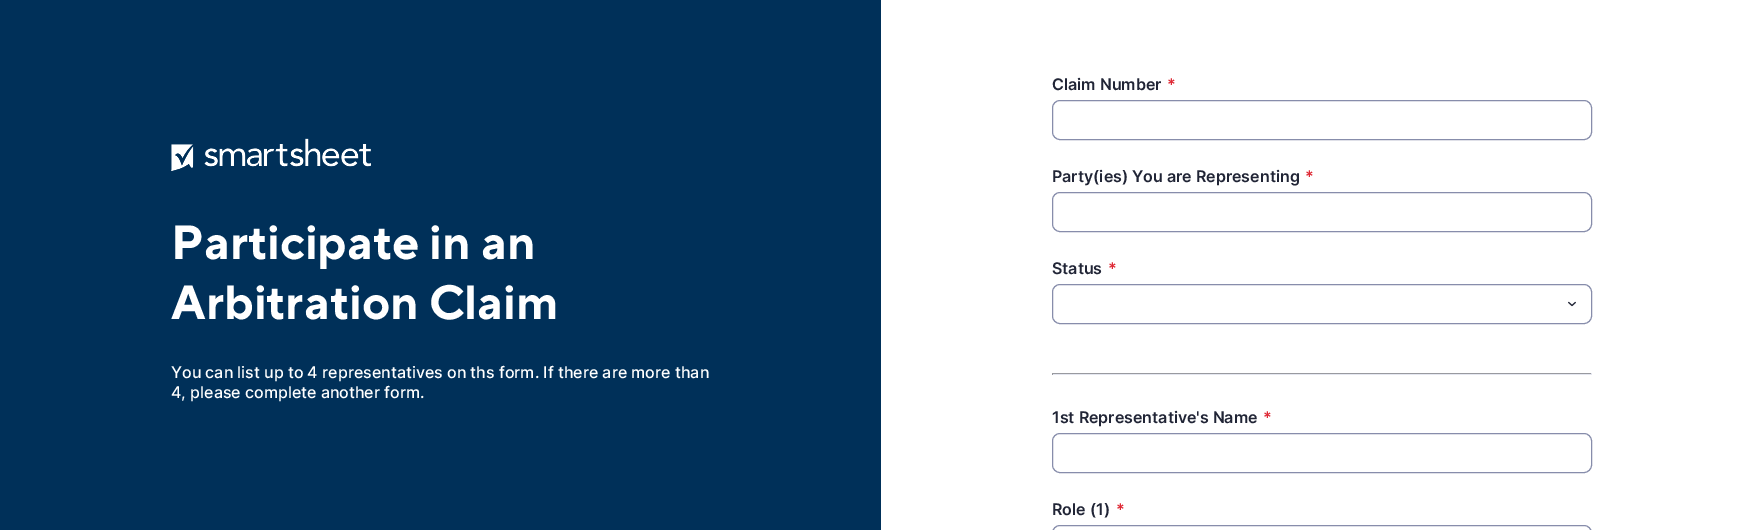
%!PS
<< /PageSize [1762 530] >> setpagedevice
/rgb { 3 { 255 div 3 1 roll } repeat setrgbcolor } def
/font { [ exch dup neg 0 0 3 -1 roll 0 0 ] selectfont } def
/roundrect { 5 dict begin { /r /h /w /y /x } { exch def } forall
  x r add y moveto x w add y 2 copy h add r arct x w add y h add x 1 index r arct
  x y h add x y r arct x y 2 copy exch w add exch r arct closepath end } def
/picture { 5 dict begin { /h /w /y /x /name } { exch def } forall
  gsave x y translate w h scale
  w h 8 [w 0 0 h 0 0] name (r) file false 3 colorimage grestore end } def
0 530 translate 1 -1 scale
4 setmiterlimit
255 255 255 rgb
0 0 1762 530 rectfill
0 48 89 rgb
0 0 881 530 rectfill
(img/1.rgb) 171 138 200 33 picture
135 141 171 rgb
1052.5 100.5 539 39 7.5 roundrect stroke
1052.5 192.5 539 39 7.5 roundrect stroke
(img/2.rgb) 1568 301 8 6 picture
1052.5 284.5 539 39 7.5 roundrect stroke
[
  [1052 373 540 1 153 154 160]
  [1591 373 1 2 229 231 240]
  [1052 374 540 1 229 231 240]
  [1052 373 1 2 153 154 160]
] { aload pop rgb rectfill } forall
135 141 171 rgb
1052.5 433.5 539 39 7.5 roundrect stroke
1052.5 525.5 539 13 7.5 roundrect stroke
/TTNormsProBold-Bold 48 font
255 255 255 rgb
171 259 moveto (Participate in an) show
171 319 moveto (Arbitration Claim) show
/Inter-Medium 16 font
171 378 moveto (You can list up to 4 representatives on ths form. If there are more than) show
171 398 moveto (4, please complete another form.) show
/Inter-SemiBold 16 font
33 37 54 rgb
1052 90 moveto (Claim Number) show
223 42 54 rgb
1167 90 moveto (*) show
33 37 54 rgb
1052 182 moveto (Party\(ies\) You are Representing) show
223 42 54 rgb
1305 182 moveto (*) show
33 37 54 rgb
1052 274 moveto (Status) show
223 42 54 rgb
1108 274 moveto (*) show
33 37 54 rgb
1052 423 moveto (1st Representative's Name) show
223 42 54 rgb
1263 423 moveto (*) show
33 37 54 rgb
1052 515 moveto (Role \(1\)) show
223 42 54 rgb
1116 515 moveto (*) show
showpage
